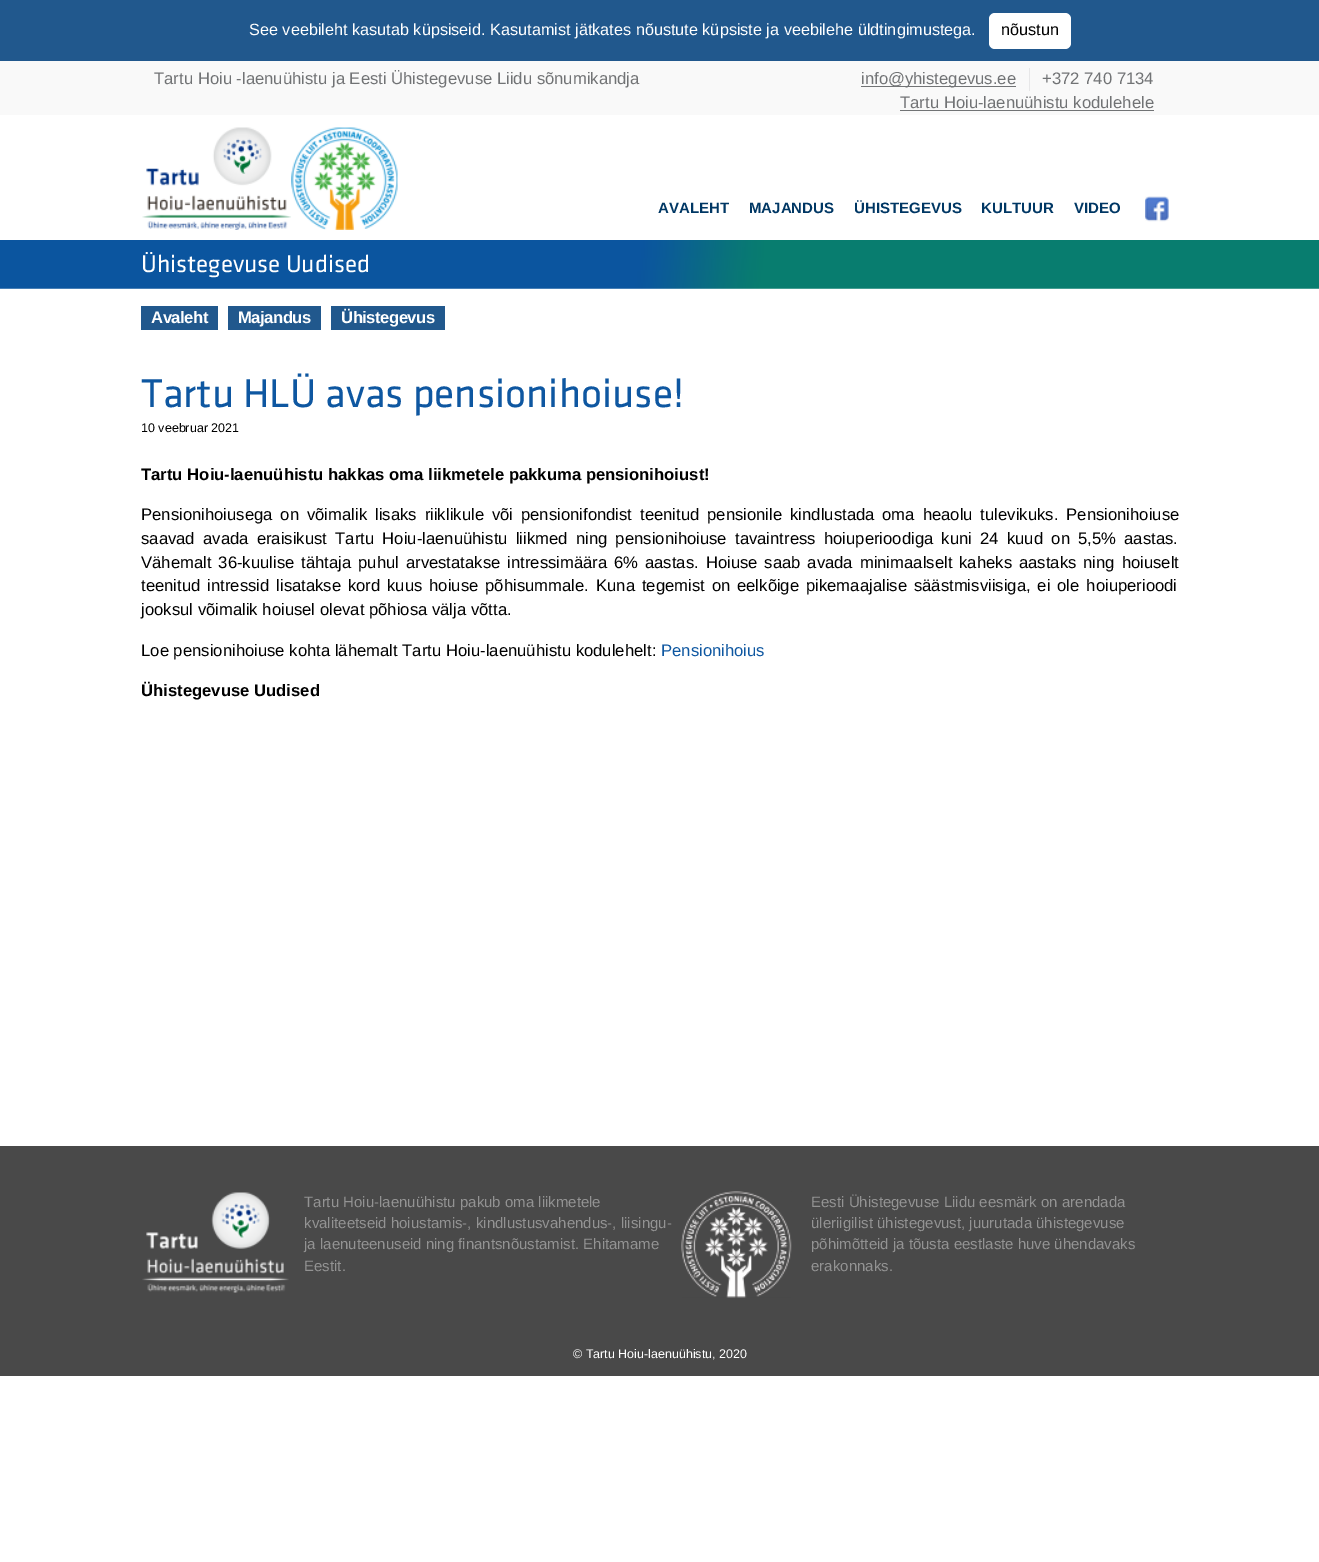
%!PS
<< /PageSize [1319 1562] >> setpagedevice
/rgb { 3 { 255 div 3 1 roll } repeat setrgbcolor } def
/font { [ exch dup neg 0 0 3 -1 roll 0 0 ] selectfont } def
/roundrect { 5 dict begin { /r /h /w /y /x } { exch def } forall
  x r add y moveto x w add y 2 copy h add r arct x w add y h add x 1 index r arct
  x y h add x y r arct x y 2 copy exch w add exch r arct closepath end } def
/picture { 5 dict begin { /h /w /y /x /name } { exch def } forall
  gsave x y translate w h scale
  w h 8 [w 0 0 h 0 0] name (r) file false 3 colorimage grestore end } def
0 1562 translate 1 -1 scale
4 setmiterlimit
255 255 255 rgb
0 0 1319 1562 rectfill
33 88 141 rgb
0 0 1319 61 rectfill
255 255 255 rgb
989 13 82 36 6 roundrect fill
[
  [0 61 1319 54 249 249 249]
  [861 86 155 1 113 115 117]
  [1029 68 1 23 231 231 232]
  [900 110 254 1 113 115 117]
] { aload pop rgb rectfill } forall
(img/1.rgb) 142 127 150 103 picture
(img/2.rgb) 291 127 107 103 picture
(img/3.rgb) 1145 196 24 26 picture
(img/4.rgb) 0 240 1319 49 picture
[
  [141 306 77 24 33 88 141]
  [228 306 93 24 33 88 141]
  [331 306 114 24 33 88 141]
  [0 1146 1319 230 73 73 73]
] { aload pop rgb rectfill } forall
(img/5.rgb) 142 1192 147 101 picture
(img/6.rgb) 681 1191 111 107 picture
/LiberationSans-Regular 16.25 font
255 255 255 rgb
249 35 moveto (See veebileht kasutab küpsiseid. Kasutamist jätkates nõustute küpsiste ja veebilehe üldtingimustega.) show
0 0 0 rgb
1001 35 moveto (nõustun) show
/LiberationSans-Regular 16.67 font
113 115 117 rgb
[
  [(Tartu Hoiu -laenuühistu ja Eesti Ühistegevuse Liidu sõnumikandja) 154 84]
  [(info@yhistegevus.ee) 861 84]
  [(+372 740 7134) 1042 84]
  [(Tartu Hoiu-laenuühistu kodulehele) 900 108]
] { aload pop moveto show } forall
/LiberationSans-Bold 15 font
0 55 100 rgb
[
  [(AVALEHT) 658 213]
  [(MAJANDUS) 749 213]
  [(ÜHISTEGEVUS) 854 213]
  [(KULTUUR) 981 213]
  [(VIDEO) 1074 213]
] { aload pop moveto show } forall
/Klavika-Regular 25 font
255 255 255 rgb
141 272 moveto (Ühistegevuse Uudised) show
/LiberationSans-Bold 16.67 font
151 323 moveto -0.5 0 (Avaleht) ashow
238 323 moveto -0.5 0 (Majandus) ashow
341 323 moveto -0.5 0 (Ühistegevus) ashow
/Klavika-Regular 41.7 font
14 87 161 rgb
141 407 moveto (Tartu HLÜ avas pensionihoiuse!) show
/LiberationSans-Regular 12.5 font
0 0 0 rgb
141 432 moveto (10 veebruar 2021) show
/LiberationSans-Bold 16.67 font
141 480 moveto (Tartu Hoiu-laenuühistu hakkas oma liikmetele pakkuma pensionihoiust!) show
/LiberationSans-Regular 16.67 font
141 520 moveto 3.25 0 32 (Pensionihoiusega on võimalik lisaks riiklikule või pensionifondist teenitud pensionile kindlustada oma heaolu tulevikuks. Pensionihoiuse) widthshow
141 544 moveto 3.6 0 32 (saavad avada eraisikust Tartu Hoiu-laenuühistu liikmed ning pensionihoiuse tavaintress hoiuperioodiga kuni 24 kuud on 5,5% aastas.) widthshow
141 568 moveto 2.25 0 32 (Vähemalt 36-kuulise tähtaja puhul arvestatakse intressimäära 6% aastas. Hoiuse saab avada minimaalselt kaheks aastaks ning hoiuselt) widthshow
141 591 moveto 2.25 0 32 (teenitud intressid lisatakse kord kuus hoiuse põhisummale. Kuna tegemist on eelkõige pikemaajalise säästmisviisiga, ei ole hoiuperioodi) widthshow
141 615 moveto (jooksul võimalik hoiusel olevat põhiosa välja võtta.) show
141 656 moveto (Loe pensionihoiuse kohta lähemalt Tartu Hoiu-laenuühistu kodulehelt:) show
14 87 161 rgb
661 656 moveto (Pensionihoius) show
/LiberationSans-Bold 16.67 font
0 0 0 rgb
141 696 moveto (Ühistegevuse Uudised) show
/LiberationSans-Regular 15 font
147 147 147 rgb
[
  [(Tartu Hoiu-laenuühistu pakub oma liikmetele) 304 1207]
  [(kvaliteetseid hoiustamis-, kindlustusvahendus-, liisingu-) 304 1228]
  [(ja laenuteenuseid ning finantsnõustamist. Ehitamame) 304 1249]
  [(Eestit.) 304 1271]
  [(Eesti Ühistegevuse Liidu eesmärk on arendada) 811 1207]
  [(üleriigilist ühistegevust, juurutada ühistegevuse) 811 1228]
  [(põhimõtteid ja tõusta eestlaste huve ühendavaks) 811 1249]
  [(erakonnaks.) 811 1271]
] { aload pop moveto show } forall
/LiberationSans-Regular 12.5 font
255 255 255 rgb
573 1358 moveto (© Tartu Hoiu-laenuühistu, 2020) show
showpage
